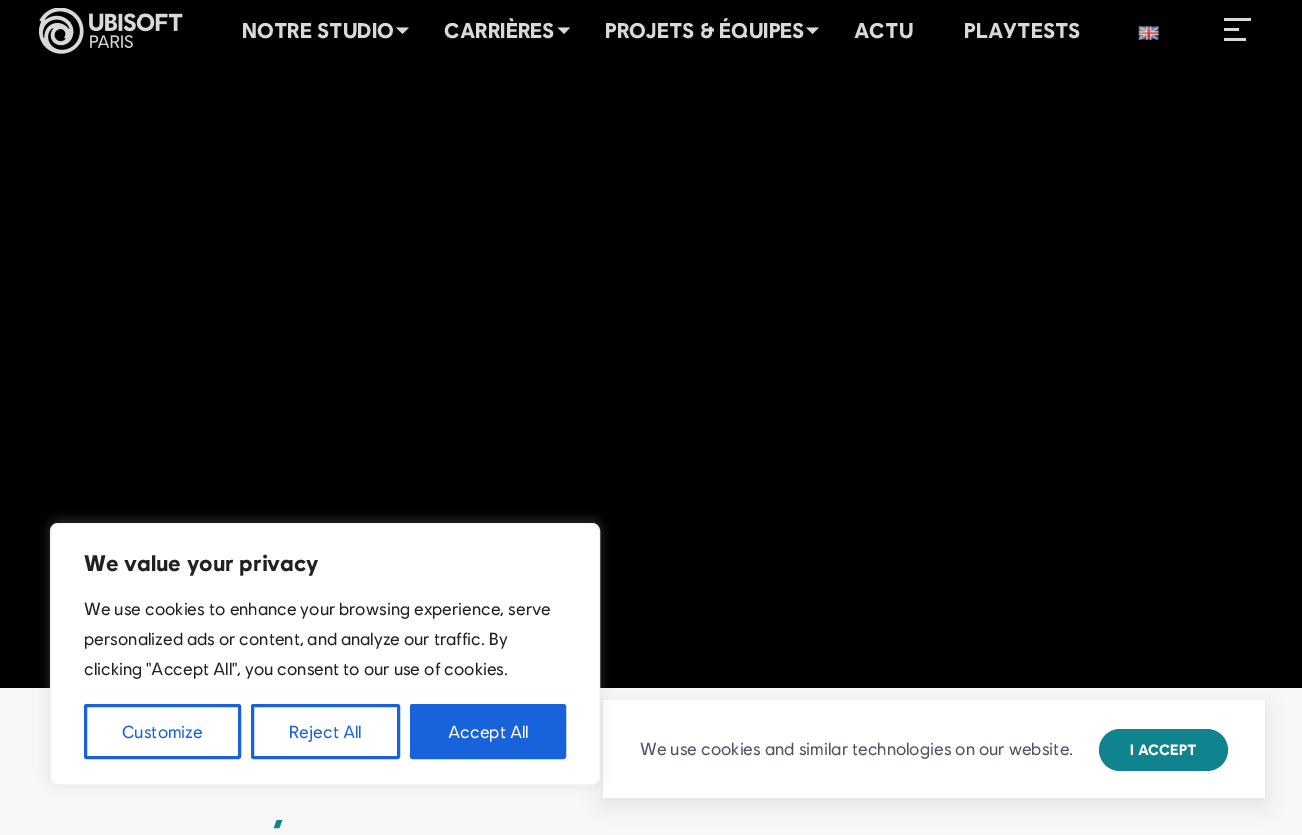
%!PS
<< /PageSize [1302 835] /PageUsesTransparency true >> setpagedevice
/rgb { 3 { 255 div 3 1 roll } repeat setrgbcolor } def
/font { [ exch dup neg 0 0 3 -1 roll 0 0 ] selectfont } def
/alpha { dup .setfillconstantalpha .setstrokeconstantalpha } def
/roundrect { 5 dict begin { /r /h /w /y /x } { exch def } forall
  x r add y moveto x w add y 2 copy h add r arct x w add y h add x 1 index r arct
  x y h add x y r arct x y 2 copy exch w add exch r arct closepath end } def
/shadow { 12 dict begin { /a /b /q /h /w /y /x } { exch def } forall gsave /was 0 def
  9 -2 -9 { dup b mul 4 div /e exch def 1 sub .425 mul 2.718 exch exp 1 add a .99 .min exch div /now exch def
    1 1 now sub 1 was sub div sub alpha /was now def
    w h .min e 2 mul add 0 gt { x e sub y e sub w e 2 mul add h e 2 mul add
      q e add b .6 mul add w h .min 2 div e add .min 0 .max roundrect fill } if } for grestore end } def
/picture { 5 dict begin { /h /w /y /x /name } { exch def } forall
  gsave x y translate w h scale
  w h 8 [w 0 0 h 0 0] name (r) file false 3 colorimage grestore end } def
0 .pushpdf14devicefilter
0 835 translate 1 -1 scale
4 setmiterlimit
255 255 255 rgb
0 0 1302 835 rectfill
0 0 0 rgb
0 0 1302 688 rectfill
(img/1.rgb) 39 8 144 46 picture
217 217 217 rgb
396 27.5 moveto 409 27.5 lineto 402.5 34 lineto closepath fill
557.5 27.5 moveto 570 27.5 lineto 564 34 lineto closepath fill
806 27.5 moveto 819 27.5 lineto 812.5 34 lineto closepath fill
(img/2.rgb) 1138 26 21 14 picture
[
  [1224 28 15 3 217 217 217]
  [1224 18 27 3 217 217 217]
  [1224 38 22 3 217 217 217]
] { aload pop rgb rectfill } forall
247 247 247 rgb
-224 688 moveto 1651 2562 lineto 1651 688 lineto closepath eofill
0 0 0 rgb
603 708 662 97 0 9.5 0.08 shadow
255 255 255 rgb
603 700 662 98 rectfill
172 171 171 rgb
50 521 550 263 8 6 0.3 shadow
255 255 255 rgb
50.5 523.5 549 261 7.5 roundrect gsave fill grestore
244 244 244 rgb
stroke
24 99 220 rgb
3 setlinewidth
85.5 705.5 154 52 1 roundrect stroke
252.5 705.5 146 52 1 roundrect stroke
411.5 705.5 153 52 1 roundrect gsave fill grestore
stroke
15 132 143 rgb
1099 729 129 42 21 roundrect fill
/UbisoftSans-Bold 21.25 font
217 217 217 rgb
[
  [(NOTRE STUDIO) 242 38]
  [(CARRIÈRES) 444 38]
  [(PROJETS & ÉQUIPES) 605 38]
  [(ACTU) 854 38]
  [(PLAYTESTS) 964 38]
] { aload pop moveto show } forall
/UbisoftSans-Bold 22.5 font
33 33 33 rgb
84 571 moveto (We value your privacy) show
/UbisoftSans-Regular 17.5 font
[
  [(We use cookies to enhance your browsing experience, serve) 84 615]
  [(personalized ads or content, and analyze our traffic. By) 84 645]
  [(clicking "Accept All", you consent to our use of cookies.) 84 675]
] { aload pop moveto show } forall
24 99 220 rgb
122 738 moveto (Customize) show
289 738 moveto (Reject All) show
255 255 255 rgb
448 738 moveto (Accept All) show
78 84 99 rgb
640 755 moveto (We use cookies and similar technologies on our website.) show
/UbisoftSans-Bold 15 font
255 255 255 rgb
1130 755 moveto (I ACCEPT) show
/UbisoftSans-Bold 40 font
15 132 143 rgb
272 848 moveto (’) show
.poppdf14devicefilter showpage
